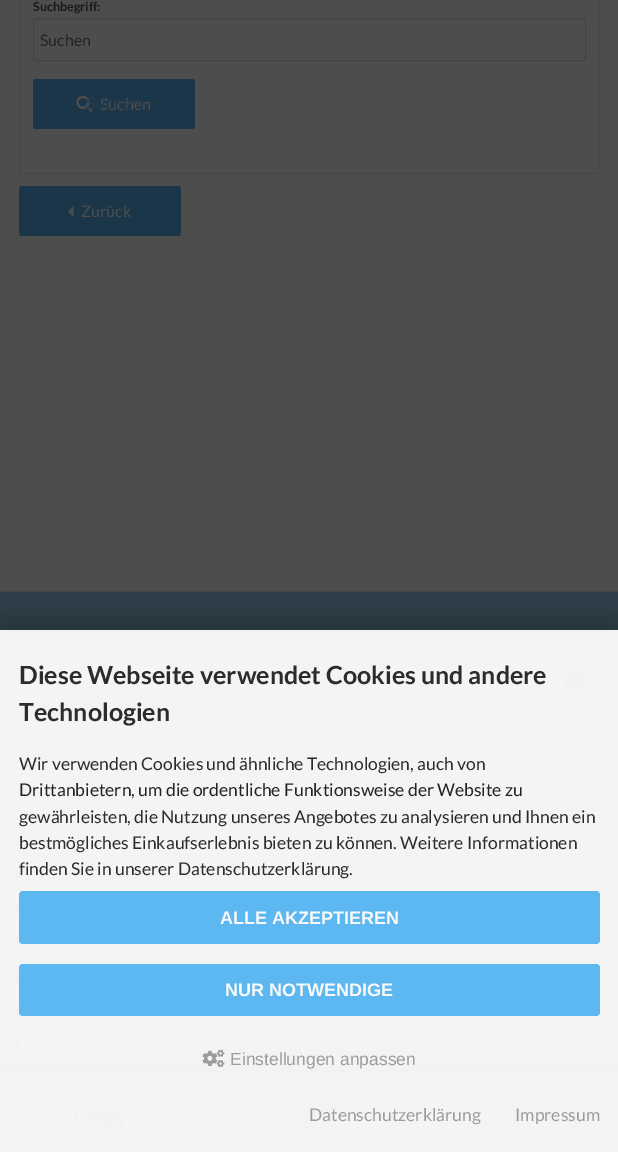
%!PS
<< /PageSize [618 1152] /PageUsesTransparency true >> setpagedevice
/rgb { 3 { 255 div 3 1 roll } repeat setrgbcolor } def
/font { [ exch dup neg 0 0 3 -1 roll 0 0 ] selectfont } def
/alpha { dup .setfillconstantalpha .setstrokeconstantalpha } def
/circle { newpath 0 360 arc closepath } def
/roundrect { 5 dict begin { /r /h /w /y /x } { exch def } forall
  x r add y moveto x w add y 2 copy h add r arct x w add y h add x 1 index r arct
  x y h add x y r arct x y 2 copy exch w add exch r arct closepath end } def
/shadow { 12 dict begin { /a /b /q /h /w /y /x } { exch def } forall gsave /was 0 def
  9 -2 -9 { dup b mul 4 div /e exch def 1 sub .425 mul 2.718 exch exp 1 add a .99 .min exch div /now exch def
    1 1 now sub 1 was sub div sub alpha /was now def
    w h .min e 2 mul add 0 gt { x e sub y e sub w e 2 mul add h e 2 mul add
      q e add b .6 mul add w h .min 2 div e add .min 0 .max roundrect fill } if } for grestore end } def
/picture { 5 dict begin { /h /w /y /x /name } { exch def } forall
  gsave x y translate w h scale
  w h 8 [w 0 0 h 0 0] name (r) file false 3 colorimage grestore end } def
0 .pushpdf14devicefilter
0 1152 translate 1 -1 scale
4 setmiterlimit
77 77 77 rgb
0 0 618 1152 rectfill
71 71 71 rgb
19.5 -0.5 580 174 rectstroke
66 66 66 rgb
33.5 18.5 552 42 2 roundrect stroke
26 54 72 rgb
33 79 162 50 2.5 roundrect fill
(img/1.rgb) 76 95 17 17 picture
19 186 162 50 2.5 roundrect fill
(img/2.rgb) 68 206 6 11 picture
[
  [0 716 618 354 74 75 75]
  [0 592 618 124 46 62 72]
  [0 591 618 1 71 71 72]
] { aload pop rgb rectfill } forall
75 75 75 rgb
13.5 655.5 592 48 2 roundrect gsave fill grestore
66 66 66 rgb
stroke
75 75 75 rgb
604 656 1 47 rectfill
59 59 59 rgb
544.5 655.5 61 48 rectstroke
(img/3.rgb) 565 673 20 16 picture
(img/4.rgb) 13 802 8 12 picture
(img/5.rgb) 13 835 8 13 picture
(img/6.rgb) 13 869 8 13 picture
(img/7.rgb) 13 903 6 12 picture
(img/4.rgb) 13 937 8 12 picture
(img/8.rgb) 13 970 6 13 picture
(img/9.rgb) 13 1004 7 13 picture
(img/10.rgb) 13 1038 8 12 picture
20 20 20 rgb
0 1070 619 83 0 9.5 1 shadow
[
  [0 1074 618 77 77 77 77]
  [0 1070 618 4 77 0 54]
  [0 1151 618 1 77 0 54]
] { aload pop rgb rectfill } forall
(img/11.rgb) 39 1101 197 29 picture
72 72 72 rgb
309.5 1109.5 29 circle gsave fill grestore
26 54 72 rgb
stroke
(img/12.rgb) 292 1094 34 29 picture
72 72 72 rgb
523 1106 19.5 circle gsave fill grestore
26 54 72 rgb
stroke
(img/13.rgb) 511 1093 22 23 picture
(img/14.rgb) 562 1086 33 38 picture
gsave
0 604 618 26 rectclip
0 0 0 rgb
0 620 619 523 0 12.5 0.19 shadow
grestore
0.97 alpha
249 249 249 rgb
0 630 618 522 rectfill
1 alpha
93 183 240 rgb
19 891 581 53 4 roundrect fill
19 964 581 52 4 roundrect fill
(img/15.rgb) 202 1049 23 19 picture
/Lato-Bold 12.5 font
26 26 26 rgb
33 11 moveto (Suchbegriff:) show
/Lato-Regular 16 font
35 35 35 rgb
40 46 moveto (Suchen) show
77 77 77 rgb
100 110 moveto (Suchen) show
/LiberationSans-Regular 16.5 font
38 60 73 rgb
85 109 moveto (Suchen) show
/Lato-Regular 16 font
77 77 77 rgb
81 217 moveto (Zurück) show
/Lato-Bold 25 font
44 44 44 rgb
19 684 moveto (Diese Webseite verwendet Cookies und andere) show
19 721 moveto (Technologien) show
/Lato-Regular 17.5 font
19 770 moveto (Wir verwenden Cookies und ähnliche Technologien, auch von) show
35 35 35 rgb
19 796 moveto (Drittanbietern, um die ordentliche Funktionsweise der Website zu) show
44 44 44 rgb
[
  [(gewährleisten, die Nutzung unseres Angebotes zu analysieren und Ihnen ein) 19 823]
  [(bestmögliches Einkaufserlebnis bieten zu können. Weitere Informationen) 19 849]
  [(finden Sie in unserer Datenschutzerklärung.) 19 875]
] { aload pop moveto show } forall
/LiberationSans-Bold 18 font
250 250 250 rgb
220 924 moveto (ALLE AKZEPTIEREN) show
225 996 moveto (NUR NOTWENDIGE) show
/LiberationSans-Regular 17.5 font
156 156 156 rgb
230 1065 moveto (Einstellungen anpassen) show
/Lato-Regular 17.5 font
309 1121 moveto (Datenschutzerklärung) show
515 1121 moveto (Impressum) show
.poppdf14devicefilter showpage
